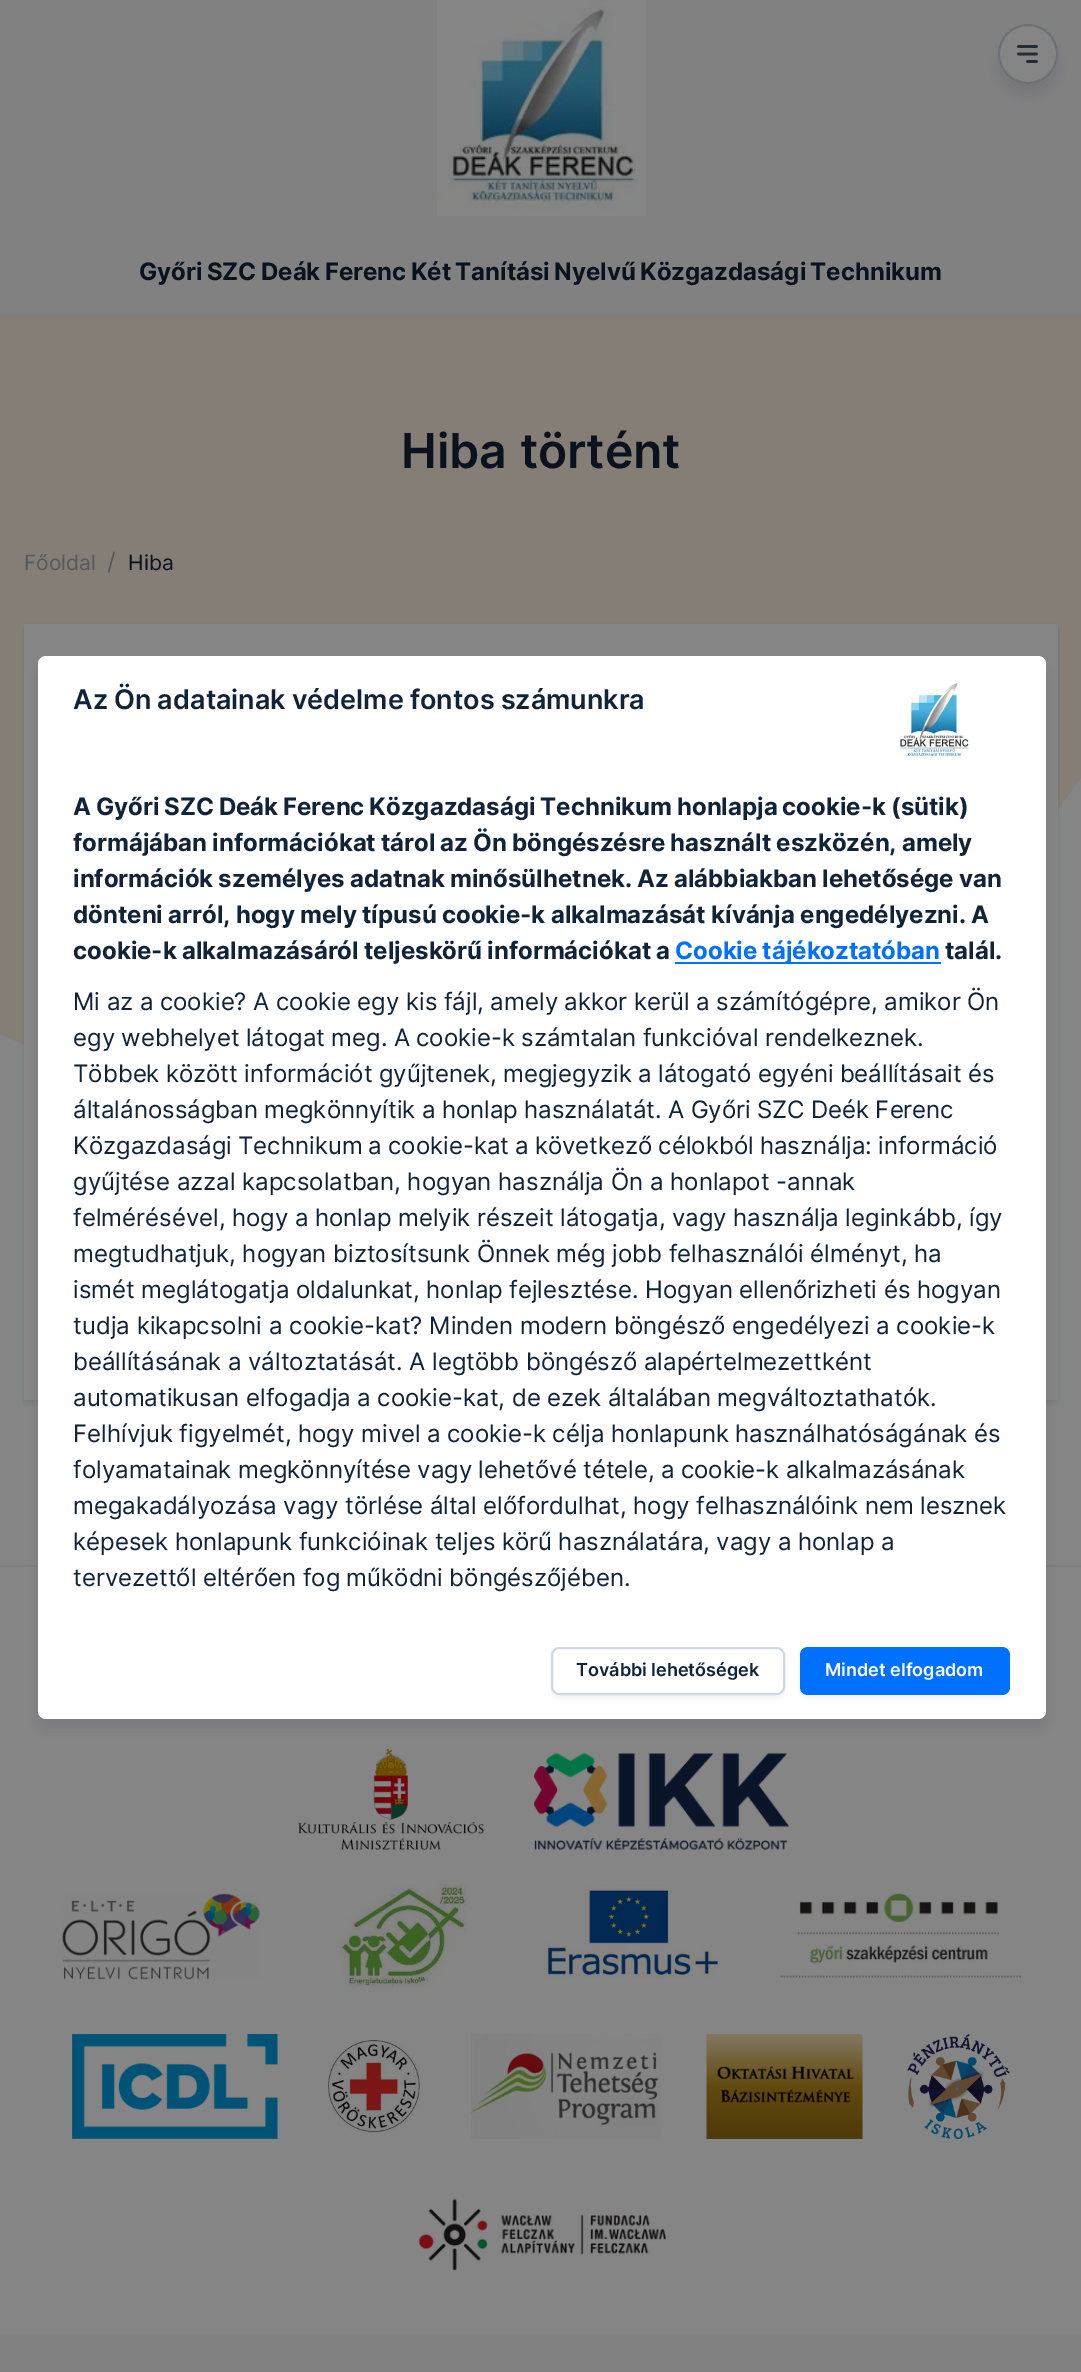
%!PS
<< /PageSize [1081 2372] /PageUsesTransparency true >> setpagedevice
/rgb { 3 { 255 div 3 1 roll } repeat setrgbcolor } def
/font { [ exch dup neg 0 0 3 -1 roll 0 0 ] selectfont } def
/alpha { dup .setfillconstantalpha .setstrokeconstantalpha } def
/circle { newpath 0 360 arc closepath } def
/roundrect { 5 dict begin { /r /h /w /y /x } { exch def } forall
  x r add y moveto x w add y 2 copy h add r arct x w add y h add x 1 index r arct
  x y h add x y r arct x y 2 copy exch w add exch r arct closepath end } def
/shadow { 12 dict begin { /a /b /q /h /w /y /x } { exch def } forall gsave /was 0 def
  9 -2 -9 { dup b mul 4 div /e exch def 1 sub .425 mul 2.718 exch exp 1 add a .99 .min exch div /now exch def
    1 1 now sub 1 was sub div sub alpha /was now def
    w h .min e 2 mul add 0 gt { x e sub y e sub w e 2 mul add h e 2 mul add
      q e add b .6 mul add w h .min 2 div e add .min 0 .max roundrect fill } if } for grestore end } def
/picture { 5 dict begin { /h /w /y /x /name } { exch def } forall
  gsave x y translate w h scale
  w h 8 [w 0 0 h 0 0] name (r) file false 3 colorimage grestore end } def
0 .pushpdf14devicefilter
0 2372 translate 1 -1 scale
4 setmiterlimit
133 133 133 rgb
0 0 1081 2372 rectfill
129 129 130 rgb
0 0 1081 314 rectfill
5 16 35 rgb
998 36 60 60 30 7.5 0.1 shadow
133 133 133 rgb
1028 54 30 circle fill
0.2 alpha
12 32 54 rgb
2 setlinewidth
1028 54 29 circle stroke
1 alpha
(img/1.rgb) 1017 45 21 18 picture
132 126 118 rgb
0 1034 moveto 0 315 lineto 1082 315 lineto 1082 776 lineto 1068 796 lineto 1014 872 945 908 875 897 curveto 780 881 lineto 663 861 544 871 429 911 curveto 407 918 437 908 396 922 curveto 345 940 295 967 247 1004 curveto 224 1023 lineto 165 1068 99 1078 36 1050 curveto closepath fill
124 126 128 rgb
0 314 1081 2 rectfill
(img/2.rgb) 437 0 209 216 picture
5 16 35 rgb
24 624 1034 776 0 1 0.08 shadow
24 629 1034 775 0 3 0.1 shadow
133 133 133 rgb
24 624 1034 776 rectfill
124 126 128 rgb
0 1565 1081 2 rectfill
(img/3.rgb) 298 1749 186 101 picture
(img/4.rgb) 534 1753 255 97 picture
(img/5.rgb) 62 1893 199 87 picture
(img/6.rgb) 338 1884 129 105 picture
(img/7.rgb) 545 1884 175 94 picture
(img/8.rgb) 780 1892 241 86 picture
(img/9.rgb) 72 2034 206 105 picture
(img/10.rgb) 328 2040 92 93 picture
(img/11.rgb) 471 2034 190 105 picture
(img/12.rgb) 706 2034 157 105 picture
(img/13.rgb) 907 2034 103 105 picture
(img/14.rgb) 418 2198 248 73 picture
129 129 130 rgb
0 2334 1081 38 rectfill
10 31 68 rgb
38 668 1008 1063 8 7.5 0.1 shadow
255 255 255 rgb
38 656 1008 1063 8 roundrect fill
(img/15.rgb) 894 683 76 75 picture
0 112 255 rgb
675 962 266 2 rectfill
20 50 80 rgb
551 1650 234 48 8 2 0.05 shadow
255 255 255 rgb
552 1648 232 46 7 roundrect gsave fill grestore
209 216 225 rgb
stroke
20 50 80 rgb
800 1650 210 48 8 2 0.05 shadow
0 112 255 rgb
800 1647 210 48 8 roundrect fill
/Inter-Bold 24 font
9 18 29 rgb
139 280 moveto -1.25 0 32 (Győri SZC Deák Ferenc Két Tanítási Nyelvű Közgazdasági Technikum) widthshow
/Inter-SemiBold 48 font
401 468 moveto 1 0 32 (Hiba történt) widthshow
/Inter-Regular 21 font
84 89 92 rgb
24 570 moveto (Főoldal) show
/Inter-Regular 24 font
107 570 moveto (/) show
/Inter-Regular 21 font
9 18 29 rgb
128 570 moveto (Hiba) show
/Inter-SemiBold 27 font
17 35 56 rgb
73 709 moveto -0.5 0 32 (Az Ön adatainak védelme fontos számunkra) widthshow
/Inter-Bold 24 font
73 815 moveto -0.75 0 32 (A Győri SZC Deák Ferenc Közgazdasági Technikum honlapja cookie-k \(sütik\)) widthshow
73 851 moveto -0.5 0 32 (formájában információkat tárol az Ön böngészésre használt eszközén, amely) widthshow
73 887 moveto -0.5 0 32 (információk személyes adatnak minősülhetnek. Az alábbiakban lehetősége van) widthshow
73 923 moveto -0.25 0 32 (dönteni arról, hogy mely típusú cookie-k alkalmazását kívánja engedélyezni. A) widthshow
73 959 moveto -0.25 0 32 (cookie-k alkalmazásáról teljeskörű információkat a) widthshow
0 112 255 rgb
675 959 moveto -0.5 0 32 (Cookie tájékoztatóban) widthshow
17 35 56 rgb
945 959 moveto (talál.) show
/Inter-Regular 24 font
73 1010 moveto -0.2 0 32 (Mi az a cookie? A cookie egy kis fájl, amely akkor kerül a számítógépre, amikor Ön) widthshow
73 1046 moveto -0.5 0 32 (egy webhelyet látogat meg. A cookie-k számtalan funkcióval rendelkeznek.) widthshow
73 1082 moveto -0.5 0 32 (Többek között információt gyűjtenek, megjegyzik a látogató egyéni beállításait és) widthshow
73 1118 moveto -0.5 0 32 (általánosságban megkönnyítik a honlap használatát. A Győri SZC Deék Ferenc) widthshow
73 1154 moveto -0.75 0 32 (Közgazdasági Technikum a cookie-kat a következő célokból használja: információ) widthshow
73 1190 moveto (gyűjtése azzal kapcsolatban, hogyan használja Ön a honlapot -annak) show
73 1226 moveto -0.25 0 32 (felmérésével, hogy a honlap melyik részeit látogatja, vagy használja leginkább, így) widthshow
73 1262 moveto -0.25 0 32 (megtudhatjuk, hogyan biztosítsunk Önnek még jobb felhasználói élményt, ha) widthshow
73 1298 moveto -0.25 0 32 (ismét meglátogatja oldalunkat, honlap fejlesztése. Hogyan ellenőrizheti és hogyan) widthshow
73 1334 moveto (tudja kikapcsolni a cookie-kat? Minden modern böngésző engedélyezi a cookie-k) show
73 1370 moveto -0.2 0 32 (beállításának a változtatását. A legtöbb böngésző alapértelmezettként) widthshow
73 1406 moveto -0.25 0 32 (automatikusan elfogadja a cookie-kat, de ezek általában megváltoztathatók.) widthshow
73 1442 moveto -0.25 0 32 (Felhívjuk figyelmét, hogy mivel a cookie-k célja honlapunk használhatóságának és) widthshow
73 1478 moveto -0.5 0 32 (folyamatainak megkönnyítése vagy lehetővé tétele, a cookie-k alkalmazásának) widthshow
73 1514 moveto -0.25 0 32 (megakadályozása vagy törlése által előfordulhat, hogy felhasználóink nem lesznek) widthshow
73 1550 moveto -0.25 0 32 (képesek honlapunk funkcióinak teljes körű használatára, vagy a honlap a) widthshow
73 1586 moveto -0.5 0 32 (tervezettől eltérően fog működni böngészőjében.) widthshow
/Inter-SemiBold 18 font
576 1676 moveto (További lehetőségek) show
255 255 255 rgb
825 1676 moveto (Mindet elfogadom) show
.poppdf14devicefilter showpage
